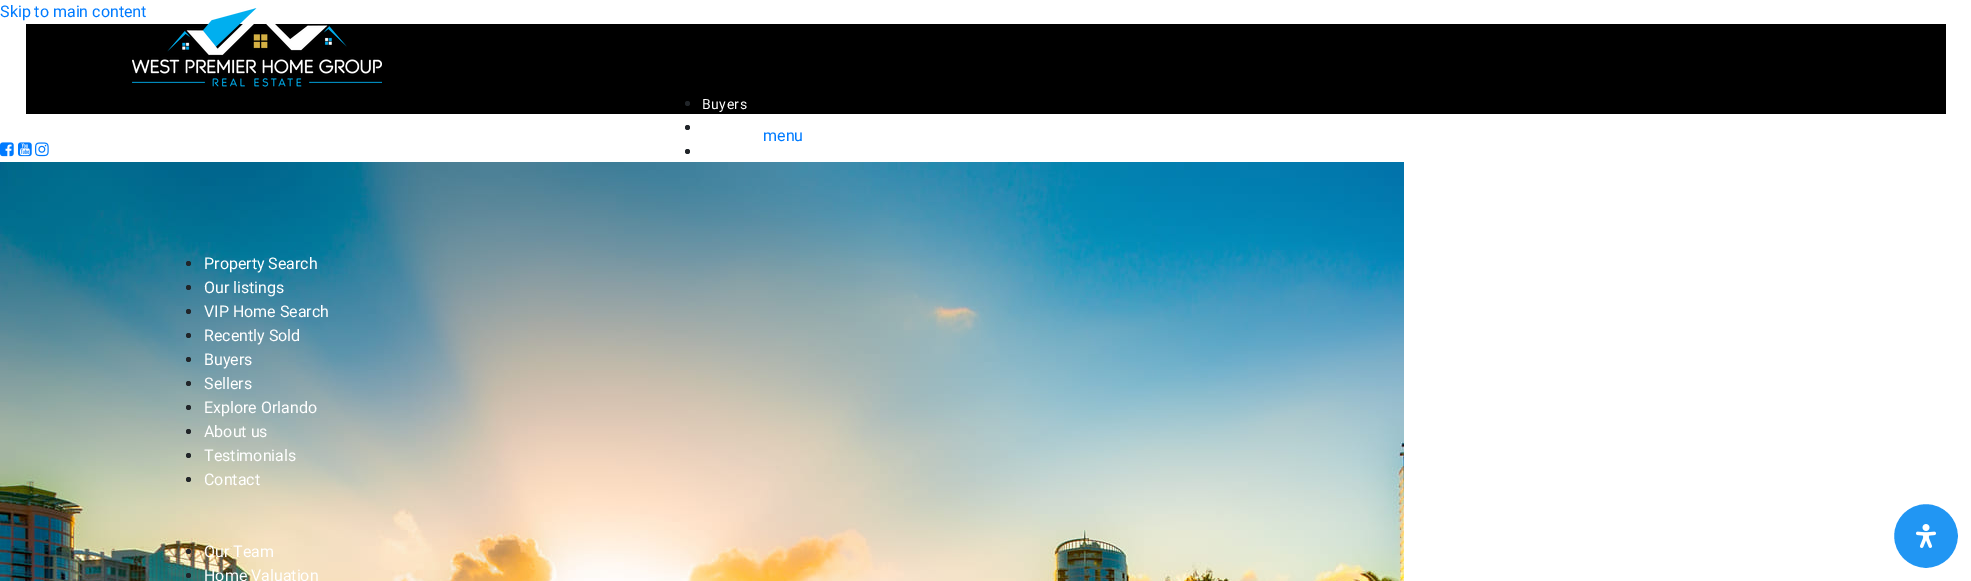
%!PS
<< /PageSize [1971 581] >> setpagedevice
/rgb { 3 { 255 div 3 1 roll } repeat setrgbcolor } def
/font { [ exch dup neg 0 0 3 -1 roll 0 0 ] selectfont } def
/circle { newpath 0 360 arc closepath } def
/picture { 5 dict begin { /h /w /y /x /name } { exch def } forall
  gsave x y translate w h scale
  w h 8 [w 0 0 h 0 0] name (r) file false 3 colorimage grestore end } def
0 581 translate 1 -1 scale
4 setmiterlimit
255 255 255 rgb
0 0 1971 581 rectfill
0 0 0 rgb
26 24 1920 90 rectfill
33 37 41 rgb
687.5 103.5 2.5 circle fill
687.5 127.5 2.5 circle fill
687.5 151.5 2.5 circle fill
(img/2.rgb) 0 142 14 15 picture
(img/3.rgb) 18 142 14 15 picture
(img/4.rgb) 35 142 14 15 picture
(img/5.rgb) 0 162 1404 419 picture
188.5 263.5 2.5 circle fill
188.5 287.5 2.5 circle fill
188.5 311.5 2.5 circle fill
188.5 335.5 2.5 circle fill
188.5 359.5 2.5 circle fill
188.5 383.5 2.5 circle fill
188.5 407.5 2.5 circle fill
188.5 431.5 2.5 circle fill
188.5 455.5 2.5 circle fill
188.5 479.5 2.5 circle fill
188.5 551.5 2.5 circle fill
188.5 575.5 2.5 circle fill
33 150 243 rgb
1926 536 33.5 circle gsave fill grestore
255 255 255 rgb
3 setlinewidth
stroke
(img/6.rgb) 1916 524 20 24 picture
/Roboto-Regular 16 font
0 123 255 rgb
0 17 moveto (Skip to main content) show
(img/1.rgb) 132 8 250 79 picture
/Roboto-Regular 14 font
255 255 255 rgb
702 109 moveto 0.5 0 (Buyers) ashow
/Roboto-Regular 16 font
0 123 255 rgb
763 141 moveto (menu) show
255 255 255 rgb
[
  [(Property Search) 204 269]
  [(Our listings) 204 293]
  [(VIP Home Search) 204 317]
  [(Recently Sold) 204 341]
  [(Buyers) 204 365]
  [(Sellers) 204 389]
  [(Explore Orlando) 204 413]
  [(About us) 204 437]
  [(Testimonials) 204 461]
  [(Contact) 204 485]
  [(Our Team) 204 557]
  [(Home Valuation) 204 581]
] { aload pop moveto show } forall
showpage
